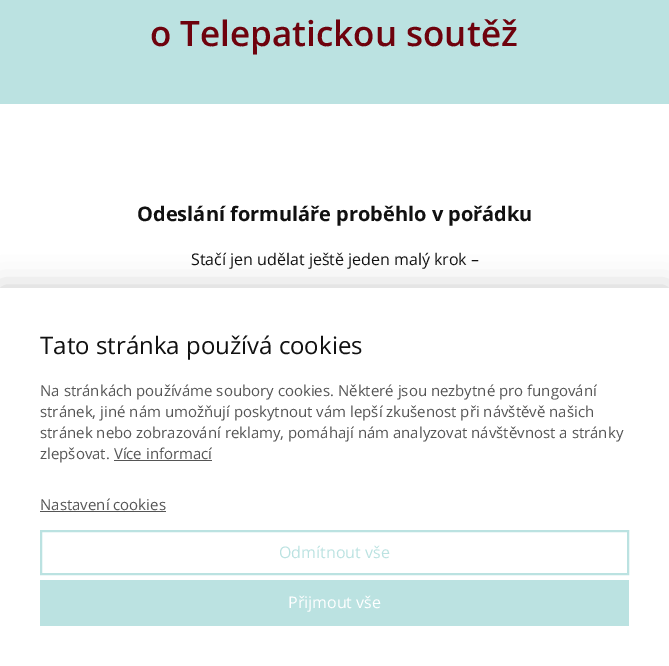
%!PS
<< /PageSize [669 666] /PageUsesTransparency true >> setpagedevice
/rgb { 3 { 255 div 3 1 roll } repeat setrgbcolor } def
/font { [ exch dup neg 0 0 3 -1 roll 0 0 ] selectfont } def
/alpha { dup .setfillconstantalpha .setstrokeconstantalpha } def
/roundrect { 5 dict begin { /r /h /w /y /x } { exch def } forall
  x r add y moveto x w add y 2 copy h add r arct x w add y h add x 1 index r arct
  x y h add x y r arct x y 2 copy exch w add exch r arct closepath end } def
/shadow { 12 dict begin { /a /b /q /h /w /y /x } { exch def } forall gsave /was 0 def
  9 -2 -9 { dup b mul 4 div /e exch def 1 sub .425 mul 2.718 exch exp 1 add a .99 .min exch div /now exch def
    1 1 now sub 1 was sub div sub alpha /was now def
    w h .min e 2 mul add 0 gt { x e sub y e sub w e 2 mul add h e 2 mul add
      q e add b .6 mul add w h .min 2 div e add .min 0 .max roundrect fill } if } for grestore end } def
0 .pushpdf14devicefilter
0 666 translate 1 -1 scale
4 setmiterlimit
187 226 225 rgb
0 0 669 666 rectfill
255 255 255 rgb
0 104 669 184 rectfill
0 0 0 rgb
0 288 669 378 0 15 0.2 shadow
[
  [0 288 669 378 255 255 255]
  [114 460 98 1 85 85 85]
  [40 511 126 1 85 85 85]
] { aload pop rgb rectfill } forall
187 226 225 rgb
2 setlinewidth
41 531 587 43 rectstroke
40 580 589 46 rectfill
/OpenSans-SemiBold 35 font
110 2 13 rgb
150 46 moveto (o Telepatickou soutěž) show
/OpenSans-Bold 20 font
17 17 17 rgb
137 221 moveto (Odeslání formuláře proběhlo v pořádku) show
/OpenSans-Regular 16 font
191 265 moveto (Stačí jen udělat ještě jeden malý krok –) show
/OpenSans-Regular 24 font
40 354 moveto (Tato stránka používá cookies) show
/OpenSans-Regular 15 font
85 85 85 rgb
[
  [(Na stránkách používáme soubory cookies. Některé jsou nezbytné pro fungování) 40 396]
  [(stránek, jiné nám umožňují poskytnout vám lepší zkušenost při návštěvě našich) 40 417]
  [(stránek nebo zobrazování reklamy, pomáhají nám analyzovat návštěvnost a stránky) 40 438]
  [(zlepšovat. Více informací) 40 459]
  [(Nastavení cookies) 40 510]
] { aload pop moveto show } forall
/OpenSans-Regular 16 font
187 226 225 rgb
279 558 moveto (Odmítnout vše) show
255 255 255 rgb
288 608 moveto (Přijmout vše) show
.poppdf14devicefilter showpage
